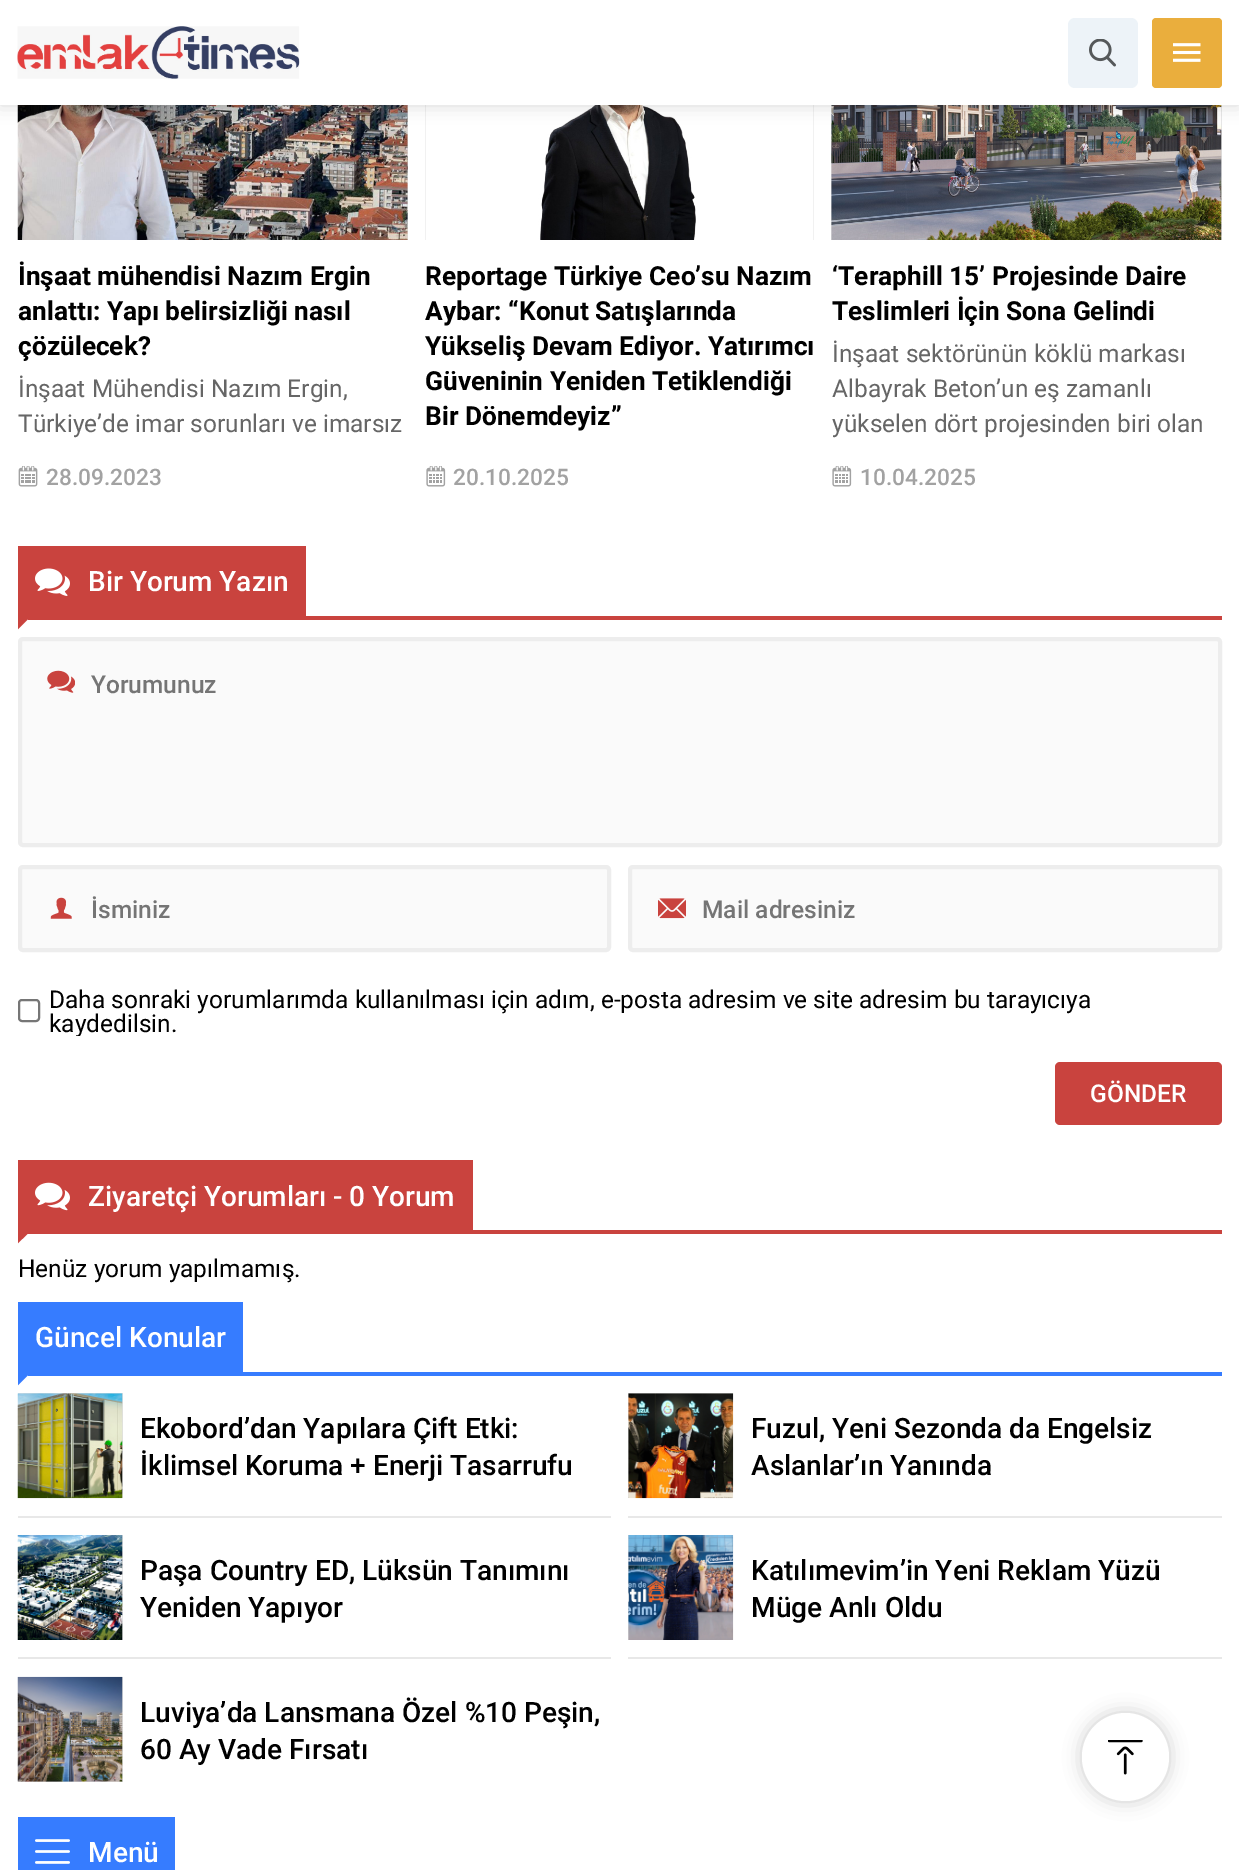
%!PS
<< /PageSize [1239 1870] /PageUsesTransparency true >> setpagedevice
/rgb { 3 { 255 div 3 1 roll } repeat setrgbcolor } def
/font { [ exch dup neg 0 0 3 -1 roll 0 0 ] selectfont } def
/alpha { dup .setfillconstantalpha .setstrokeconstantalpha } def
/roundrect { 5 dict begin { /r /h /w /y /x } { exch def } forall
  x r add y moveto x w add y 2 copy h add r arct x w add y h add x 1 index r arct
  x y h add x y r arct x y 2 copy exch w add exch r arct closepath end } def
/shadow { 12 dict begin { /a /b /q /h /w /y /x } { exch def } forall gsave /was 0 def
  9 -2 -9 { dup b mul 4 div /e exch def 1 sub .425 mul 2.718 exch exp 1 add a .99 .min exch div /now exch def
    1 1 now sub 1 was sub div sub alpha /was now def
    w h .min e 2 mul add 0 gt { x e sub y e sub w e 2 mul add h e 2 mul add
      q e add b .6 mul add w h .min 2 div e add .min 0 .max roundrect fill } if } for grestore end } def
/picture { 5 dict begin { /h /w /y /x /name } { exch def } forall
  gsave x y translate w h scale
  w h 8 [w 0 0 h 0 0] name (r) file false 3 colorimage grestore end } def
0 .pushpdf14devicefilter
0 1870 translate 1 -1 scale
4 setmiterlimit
255 255 255 rgb
0 0 1239 1870 rectfill
223 223 223 rgb
407 105 1 135 rectfill
(img/4.rgb) 17 105 391 135 picture
425 105 389 135 rectfill
(img/6.rgb) 425 105 389 135 picture
831 105 391 135 rectfill
(img/8.rgb) 831 105 391 135 picture
0 0 0 rgb
0 0 1239 105 0 9 0.15 shadow
255 255 255 rgb
0 0 1239 105 rectfill
(img/1.rgb) 17 26 283 53 picture
237 243 248 rgb
1068 18 70 70 7 roundrect fill
(img/2.rgb) 1089 39 27 28 picture
234 174 61 rgb
1152 18 70 70 4 roundrect fill
(img/3.rgb) 1173 43 28 19 picture
(img/5.rgb) 18 466 20 21 picture
(img/7.rgb) 426 466 20 21 picture
(img/7.rgb) 832 466 20 21 picture
201 67 62 rgb
18 616 1204 4 rectfill
18 546 288 70 rectfill
(img/9.rgb) 35 568 35 28 picture
18 620 10 10 rectfill
255 255 255 rgb
28 630 moveto 17.5 630 lineto 28 619.5 lineto closepath fill
250 250 250 rgb
20 639 1200 206 3 roundrect gsave fill grestore
237 237 237 rgb
4 setlinewidth
stroke
(img/10.rgb) 47 670 28 23 picture
250 250 250 rgb
20 867 589 83 3 roundrect gsave fill grestore
237 237 237 rgb
stroke
(img/11.rgb) 50 897 22 22 picture
250 250 250 rgb
630 867 590 83 3 roundrect gsave fill grestore
237 237 237 rgb
stroke
(img/12.rgb) 658 898 28 21 picture
118 118 118 rgb
2 setlinewidth
19 1000 20 21 3 roundrect stroke
201 67 62 rgb
1055 1062 167 63 5 roundrect fill
18 1230 1204 4 rectfill
18 1160 455 70 rectfill
(img/13.rgb) 35 1182 35 29 picture
18 1234 10 10 rectfill
255 255 255 rgb
28 1244 moveto 17.5 1244 lineto 28 1234 lineto closepath fill
[
  [18 1372 1204 4 54 124 255]
  [18 1302 225 70 54 124 255]
  [18 1376 10 10 54 124 255]
] { aload pop rgb rectfill } forall
255 255 255 rgb
28 1386 moveto 17.5 1386 lineto 28 1375.5 lineto closepath fill
232 232 232 rgb
18 1516 593 2 rectfill
223 223 223 rgb
18 1393 105 105 rectfill
(img/14.rgb) 17 1393 106 106 picture
232 232 232 rgb
628 1516 594 2 rectfill
223 223 223 rgb
628 1393 105 105 rectfill
(img/15.rgb) 628 1393 106 106 picture
232 232 232 rgb
18 1657 593 2 rectfill
223 223 223 rgb
122 1535 1 105 rectfill
(img/16.rgb) 17 1535 106 105 picture
232 232 232 rgb
628 1657 594 2 rectfill
223 223 223 rgb
628 1535 1 105 rectfill
(img/17.rgb) 628 1535 106 105 picture
18 1677 105 105 rectfill
(img/18.rgb) 17 1676 106 106 picture
54 124 255 rgb
18 1817 157 53 rectfill
(img/19.rgb) 35 1839 35 25 picture
0 0 0 rgb
1082 1713 87 88 43.5 9 0.2 shadow
255 255 255 rgb
1082 1713 87 88 43.5 roundrect fill
(img/20.rgb) 1108 1740 35 35 picture
/Roboto-Bold 26.25 font
0 0 0 rgb
[
  [(İnşaat mühendisi Nazım Ergin) 18 285]
  [(anlattı: Yapı belirsizliği nasıl) 18 320]
  [(çözülecek?) 18 355]
] { aload pop moveto show } forall
/Roboto-Regular 24.5 font
102 102 102 rgb
18 397 moveto (İnşaat Mühendisi Nazım Ergin,) show
18 432 moveto (Türkiye’de imar sorunları ve imarsız) show
/Roboto-Medium 22.75 font
162 162 162 rgb
46 485 moveto (28.09.2023) show
/Roboto-Bold 26.25 font
0 0 0 rgb
[
  [(Reportage Türkiye Ceo’su Nazım) 425 285]
  [(Aybar: “Konut Satışlarında) 425 320]
  [(Yükseliş Devam Ediyor. Yatırımcı) 425 355]
  [(Güveninin Yeniden Tetiklendiği) 425 390]
  [(Bir Dönemdeyiz”) 425 425]
] { aload pop moveto show } forall
/Roboto-Medium 22.75 font
162 162 162 rgb
453 485 moveto (20.10.2025) show
/Roboto-Bold 26.25 font
0 0 0 rgb
832 285 moveto (‘Teraphill 15’ Projesinde Daire) show
832 320 moveto (Teslimleri İçin Sona Gelindi) show
/Roboto-Regular 24.5 font
102 102 102 rgb
[
  [(İnşaat sektörünün köklü markası) 832 362]
  [(Albayrak Beton’un eş zamanlı) 832 397]
  [(yükselen dört projesinden biri olan) 832 432]
] { aload pop moveto show } forall
/Roboto-Medium 22.75 font
162 162 162 rgb
860 485 moveto (10.04.2025) show
/Roboto-Medium 28 font
255 255 255 rgb
88 591 moveto (Bir Yorum Yazın) show
/Roboto-Medium 24.5 font
117 117 117 rgb
[
  [(Yorumunuz) 91 693]
  [(İsminiz) 91 918]
  [(Mail adresiniz) 702 918]
] { aload pop moveto show } forall
/Roboto-Regular 24.5 font
0 0 0 rgb
49 1008 moveto (Daha sonraki yorumlarımda kullanılması için adım, e-posta adresim ve site adresim bu tarayıcıya) show
gsave
18 987 1204 49 rectclip
49 1032 moveto (kaydedilsin.) show
grestore
/Roboto-Medium 24.5 font
255 255 255 rgb
1090 1102 moveto (GÖNDER) show
/Roboto-Medium 28 font
88 1206 moveto (Ziyaretçi Yorumları - 0 Yorum) show
/Roboto-Regular 24.5 font
0 0 0 rgb
18 1277 moveto (Henüz yorum yapılmamış.) show
/Roboto-Medium 28 font
255 255 255 rgb
35 1347 moveto (Güncel Konular) show
0 0 0 rgb
[
  [(Ekobord’dan Yapılara Çift Etki:) 140 1438]
  [(İklimsel Koruma + Enerji Tasarrufu) 140 1475]
  [(Fuzul, Yeni Sezonda da Engelsiz) 751 1438]
  [(Aslanlar’ın Yanında) 751 1475]
  [(Paşa Country ED, Lüksün Tanımını) 140 1580]
  [(Yeniden Yapıyor) 140 1617]
  [(Katılımevim’in Yeni Reklam Yüzü) 751 1580]
  [(Müge Anlı Oldu) 751 1617]
  [(Luviya’da Lansmana Özel %10 Peşin,) 140 1722]
  [(60 Ay Vade Fırsatı) 140 1759]
] { aload pop moveto show } forall
255 255 255 rgb
88 1862 moveto (Menü) show
.poppdf14devicefilter showpage
